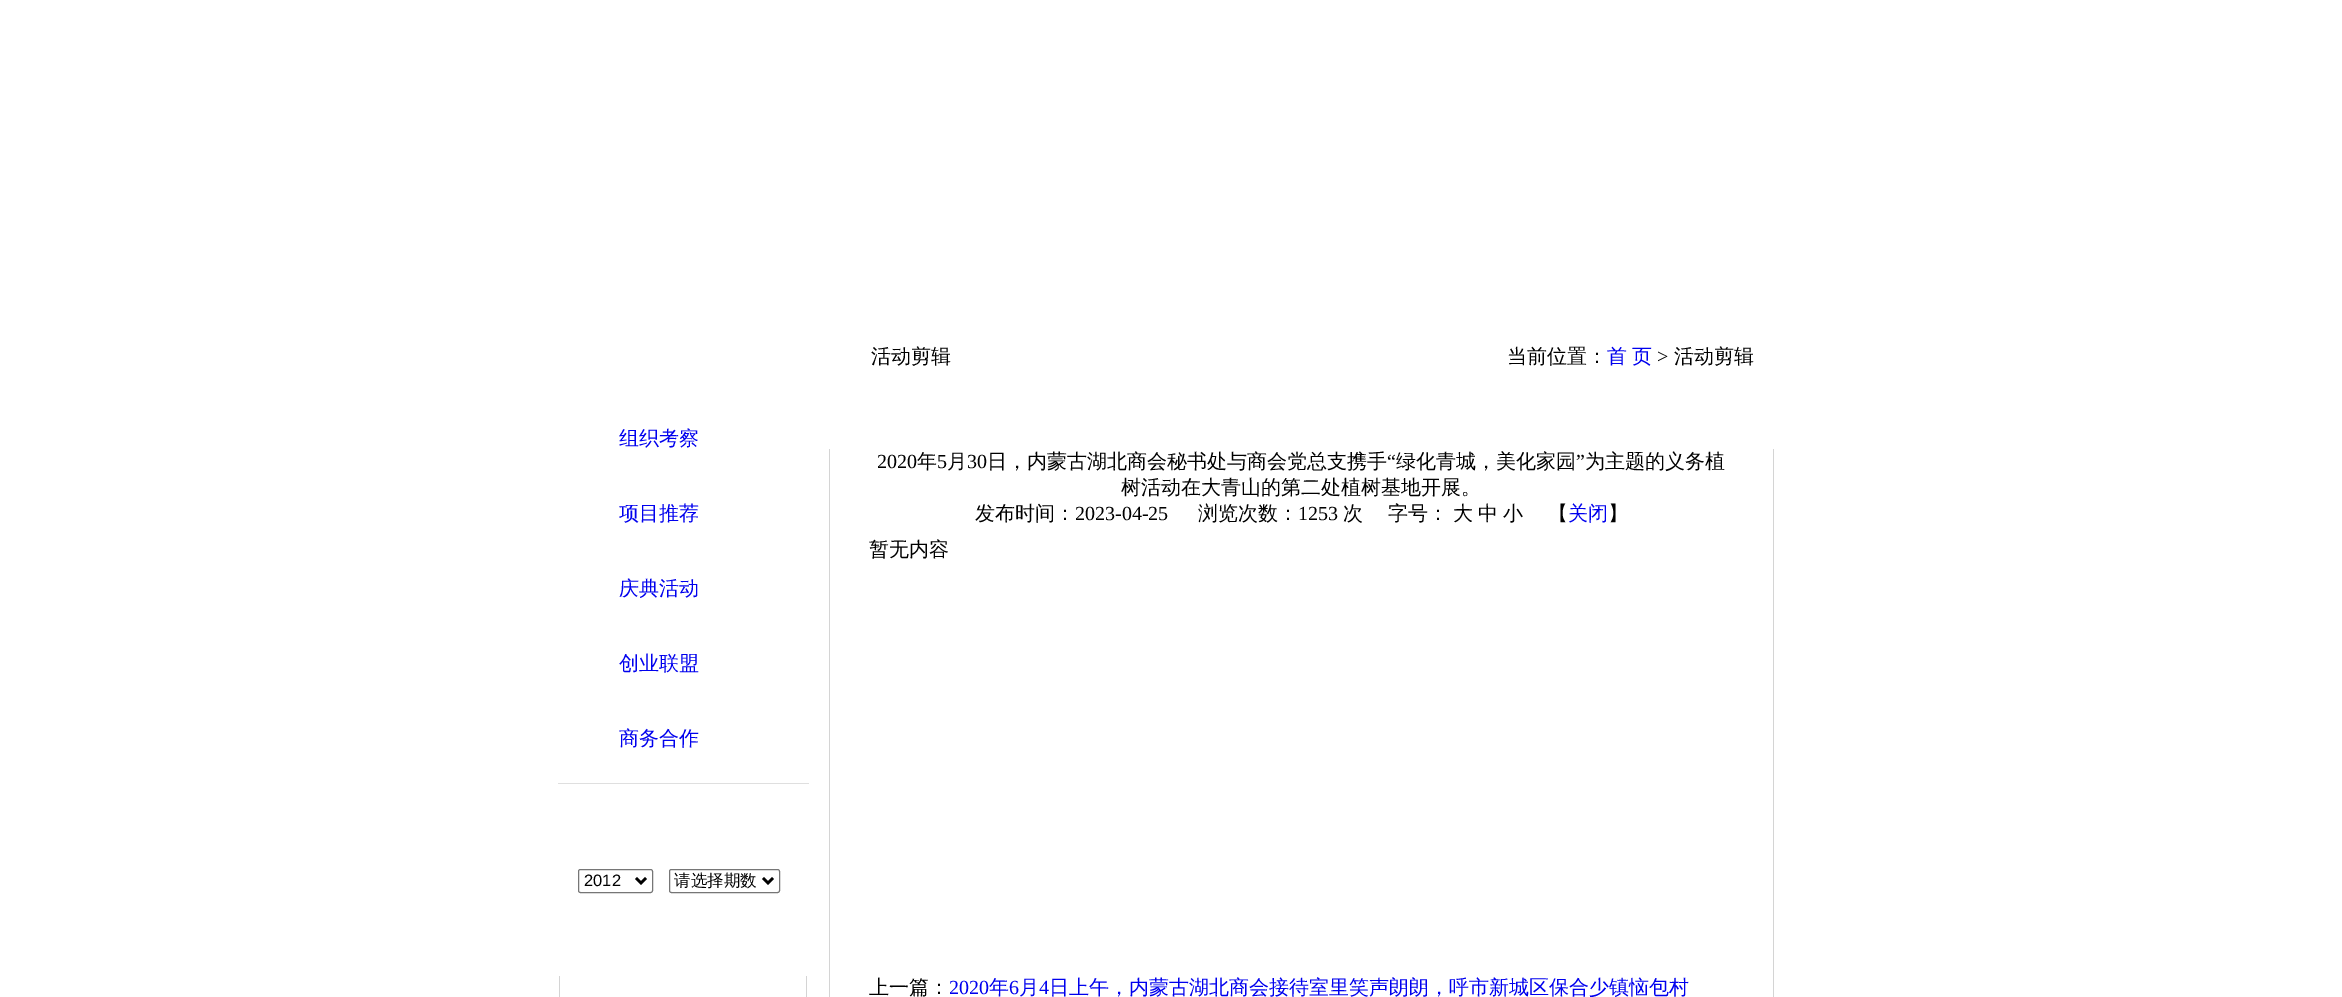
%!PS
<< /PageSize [2342 997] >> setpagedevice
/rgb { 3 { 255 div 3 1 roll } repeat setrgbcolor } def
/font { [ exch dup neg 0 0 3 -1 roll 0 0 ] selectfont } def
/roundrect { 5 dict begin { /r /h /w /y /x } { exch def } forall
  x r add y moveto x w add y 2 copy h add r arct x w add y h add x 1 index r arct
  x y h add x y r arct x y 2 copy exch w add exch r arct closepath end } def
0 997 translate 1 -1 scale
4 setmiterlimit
255 255 255 rgb
0 0 2342 997 rectfill
223 223 223 rgb
558 783 251 1 rectfill
118 118 118 rgb
578.5 869.5 74 23 2 roundrect stroke
0 0 0 rgb
2.5 setlinewidth
636 878 moveto 641 883 lineto 646 878 lineto stroke
118 118 118 rgb
1 setlinewidth
669.5 869.5 110 23 2 roundrect stroke
0 0 0 rgb
2.5 setlinewidth
763 878 moveto 768 883 lineto 773 878 lineto stroke
[
  [806 976 1 21 212 212 212]
  [559 976 1 21 212 212 212]
  [1773 449 1 548 212 212 212]
  [829 449 1 548 212 212 212]
] { aload pop rgb rectfill } forall
/WenQuanYiZenHei-Medium 20 font
0 0 238 rgb
[
  [(组织考察) 619 445]
  [(项目推荐) 619 520]
  [(庆典活动) 619 595]
  [(创业联盟) 619 670]
  [(商务合作) 619 745]
] { aload pop moveto show } forall
/LiberationSans-Regular 16.5 font
0 0 0 rgb
584 886 moveto (2012) show
/WenQuanYiZenHei-Medium 16.5 font
674 886 moveto (请选择期数) show
/WenQuanYiZenHei-Medium 20 font
871 363 moveto (活动剪辑) show
1507 363 moveto (当前位置：) show
0 0 238 rgb
1607 363 moveto -1 0 32 (首 页) widthshow
/LiberationSerif-Regular 20 font
0 0 0 rgb
1657 363 moveto (>) show
/WenQuanYiZenHei-Medium 20 font
1674 363 moveto (活动剪辑) show
/LiberationSerif-Regular 20 font
877 468 moveto (2020) show
/WenQuanYiZenHei-Medium 20 font
917 468 moveto (年) show
/LiberationSerif-Regular 20 font
937 468 moveto (5) show
/WenQuanYiZenHei-Medium 20 font
947 468 moveto (月) show
/LiberationSerif-Regular 20 font
967 468 moveto (30) show
/WenQuanYiZenHei-Medium 20 font
987 468 moveto (日，内蒙古湖北商会秘书处与商会党总支携手) show
/LiberationSerif-Regular 20 font
1387 468 moveto (“) show
/WenQuanYiZenHei-Medium 20 font
1396 468 moveto (绿化青城，美化家园) show
/LiberationSerif-Regular 20 font
1576 468 moveto (”) show
/WenQuanYiZenHei-Medium 20 font
[
  [(为主题的义务植) 1585 468]
  [(树活动在大青山的第二处植树基地开展。) 1121 494]
  [(发布时间：) 975 520]
] { aload pop moveto show } forall
/LiberationSerif-Regular 20 font
1075 520 moveto (2023-04-25) show
/WenQuanYiZenHei-Medium 20 font
1198 520 moveto (浏览次数：) show
/LiberationSerif-Regular 20 font
1298 520 moveto (1253) show
/WenQuanYiZenHei-Medium 20 font
[
  [(次) 1343 520]
  [(字号：) 1388 520]
  [(大) 1453 520]
  [(中) 1478 520]
  [(小) 1503 520]
  [(【) 1548 520]
] { aload pop moveto show } forall
0 0 238 rgb
1568 520 moveto (关闭) show
0 0 0 rgb
[
  [(】) 1608 520]
  [(暂无内容) 869 556]
  [(上一篇：) 869 994]
] { aload pop moveto show } forall
/LiberationSerif-Regular 20 font
0 0 238 rgb
949 994 moveto (2020) show
/WenQuanYiZenHei-Medium 20 font
989 994 moveto (年) show
/LiberationSerif-Regular 20 font
1009 994 moveto (6) show
/WenQuanYiZenHei-Medium 20 font
1019 994 moveto (月) show
/LiberationSerif-Regular 20 font
1039 994 moveto (4) show
/WenQuanYiZenHei-Medium 20 font
1049 994 moveto (日上午，内蒙古湖北商会接待室里笑声朗朗，呼市新城区保合少镇恼包村) show
showpage
